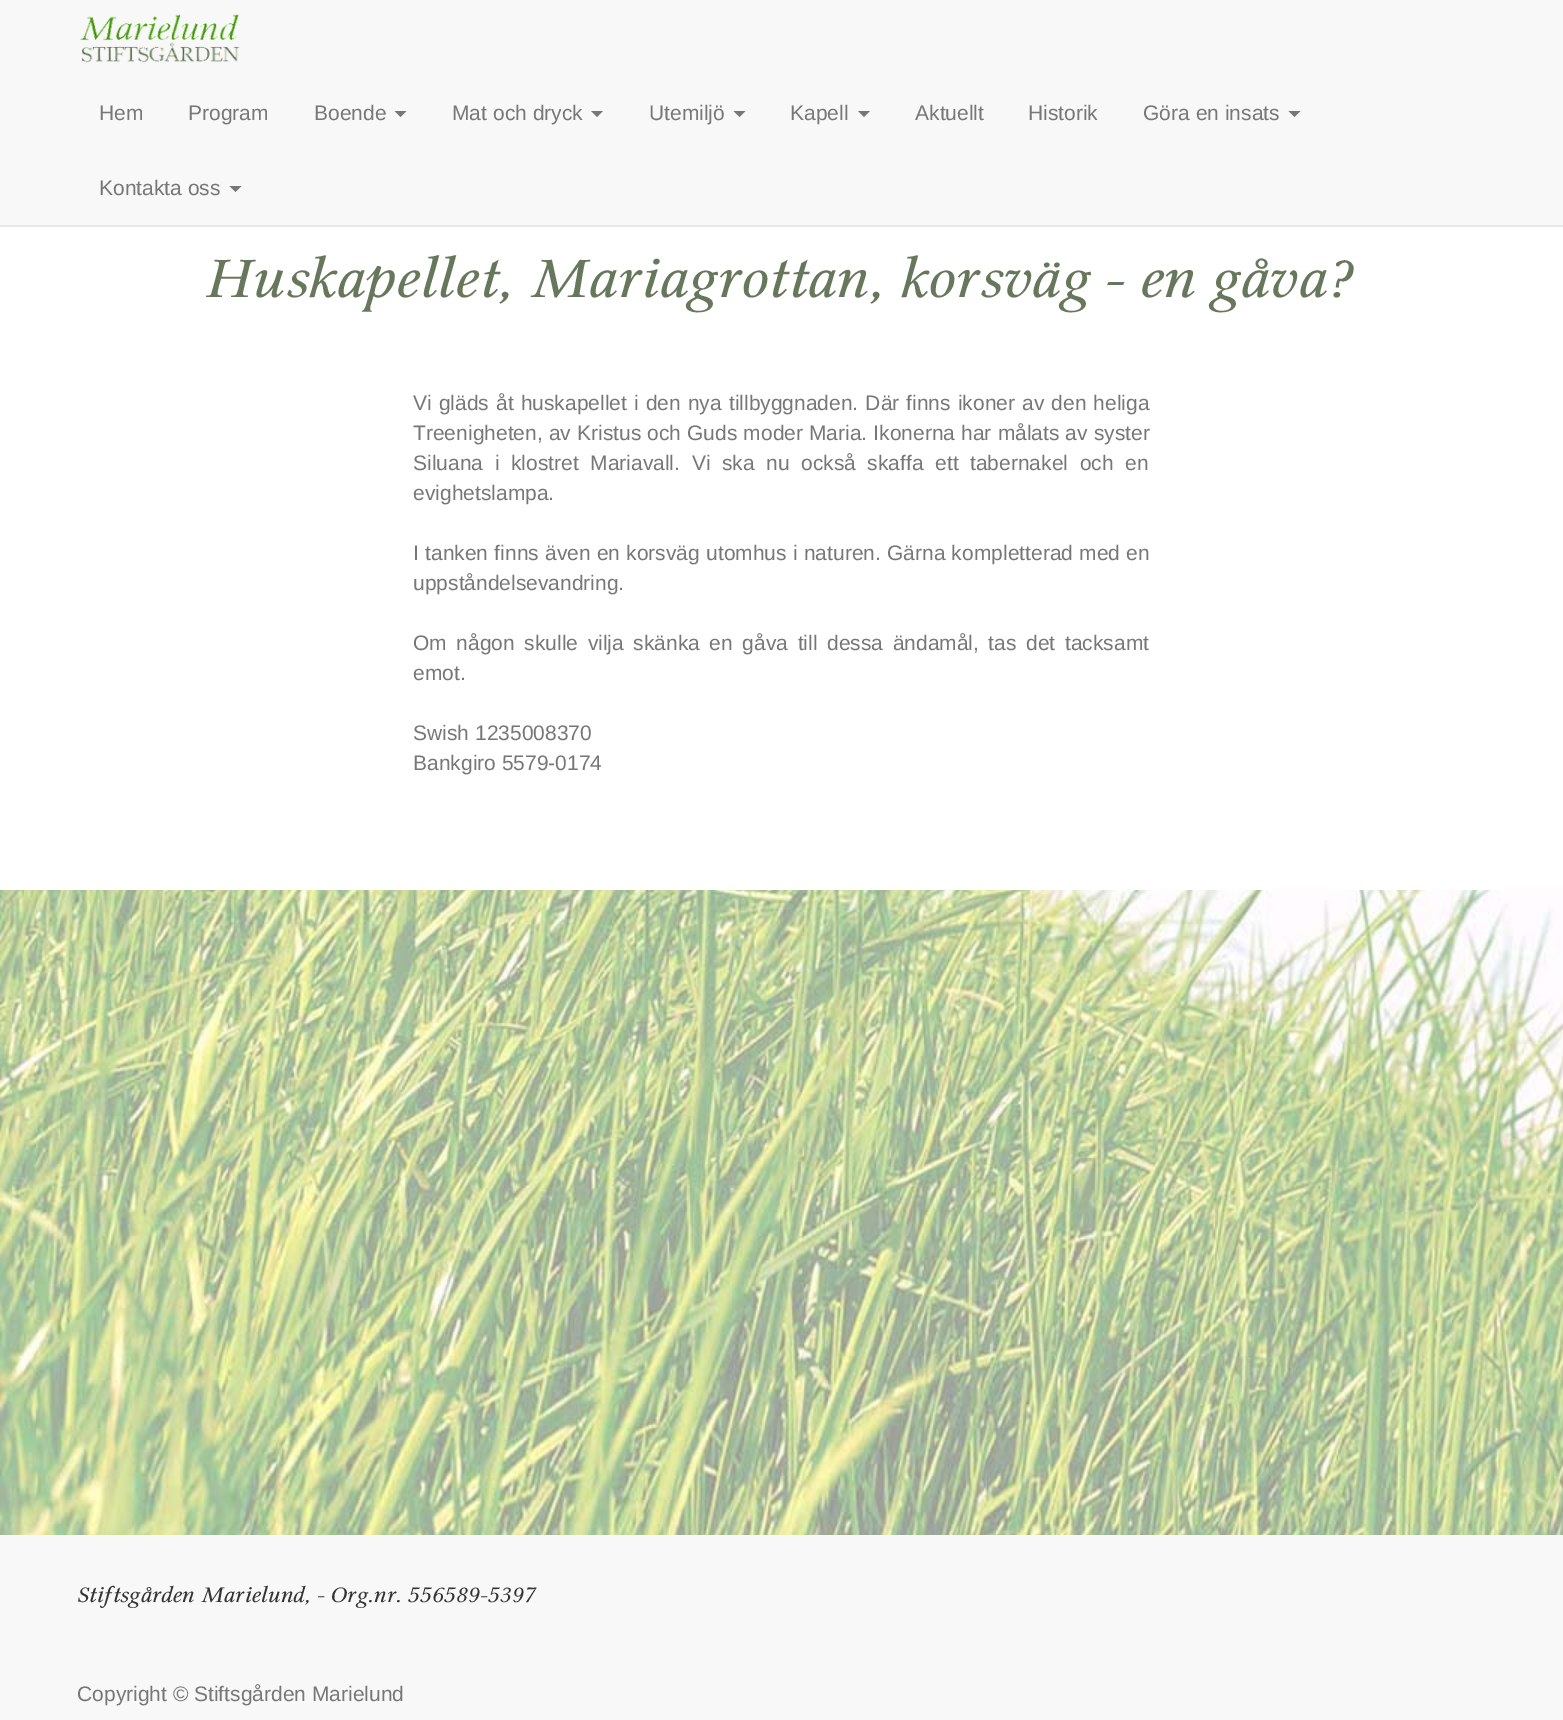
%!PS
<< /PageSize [1563 1720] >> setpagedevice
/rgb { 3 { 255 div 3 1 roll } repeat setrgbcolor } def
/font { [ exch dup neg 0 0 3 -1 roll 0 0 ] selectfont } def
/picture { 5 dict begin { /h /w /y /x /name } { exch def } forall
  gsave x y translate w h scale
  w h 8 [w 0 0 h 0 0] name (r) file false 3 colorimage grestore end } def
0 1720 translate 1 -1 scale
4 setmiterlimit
255 255 255 rgb
0 0 1563 1720 rectfill
(img/1.rgb) 0 890 1563 645 picture
248 248 248 rgb
0 0 1563 225 rectfill
231 231 231 rgb
0 225 1563 2 rectfill
(img/2.rgb) 80 14 160 49 picture
119 119 119 rgb
394.5 111 moveto 406.5 111 lineto 400.5 117 lineto closepath fill
591 111 moveto 603 111 lineto 597 117 lineto closepath fill
733.5 111 moveto 745.5 111 lineto 739.5 117 lineto closepath fill
858 111 moveto 870 111 lineto 864 117 lineto closepath fill
1288.5 111 moveto 1300.5 111 lineto 1294.5 117 lineto closepath fill
229.5 186 moveto 241.5 186 lineto 235.5 192 lineto closepath fill
248 248 248 rgb
0 1535 1563 185 rectfill
/LiberationSans-Regular 21 font
119 119 119 rgb
[
  [(Hem) 99 120]
  [(Program) 188 120]
  [(Boende) 314 120]
  [(Mat och dryck) 452 120]
  [(Utemiljö) 649 120]
  [(Kapell) 790 120]
  [(Aktuellt) 915 120]
  [(Historik) 1028 120]
  [(Göra en insats) 1143 120]
  [(Kontakta oss) 99 195]
] { aload pop moveto show } forall
/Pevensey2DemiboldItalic-SemiBold 54 font
103 119 92 rgb
206 297 moveto (Huskapellet, Mariagrottan, korsväg - en gåva?) show
/LiberationSans-Regular 21 font
119 119 119 rgb
413 410 moveto 1.25 0 32 (Vi gläds åt huskapellet i den nya tillbyggnaden. Där finns ikoner av den heliga) widthshow
413 440 moveto 0.25 0 32 (Treenigheten, av Kristus och Guds moder Maria. Ikonerna har målats av syster) widthshow
413 470 moveto 5.75 0 32 (Siluana i klostret Mariavall. Vi ska nu också skaffa ett tabernakel och en) widthshow
413 500 moveto (evighetslampa.) show
413 560 moveto 0.4 0 32 (I tanken finns även en korsväg utomhus i naturen. Gärna kompletterad med en) widthshow
413 590 moveto (uppståndelsevandring.) show
413 650 moveto 3.75 0 32 (Om någon skulle vilja skänka en gåva till dessa ändamål, tas det tacksamt) widthshow
[
  [(emot.) 413 680]
  [(Swish 1235008370) 413 740]
  [(Bankgiro 5579-0174) 413 770]
] { aload pop moveto show } forall
/Pevensey2DemiboldItalic-SemiBold 21 font
51 51 51 rgb
77 1602 moveto (Stiftsgården Marielund, - Org.nr. 556589-5397) show
/LiberationSans-Regular 21 font
119 119 119 rgb
77 1701 moveto (Copyright © Stiftsgården Marielund) show
showpage
